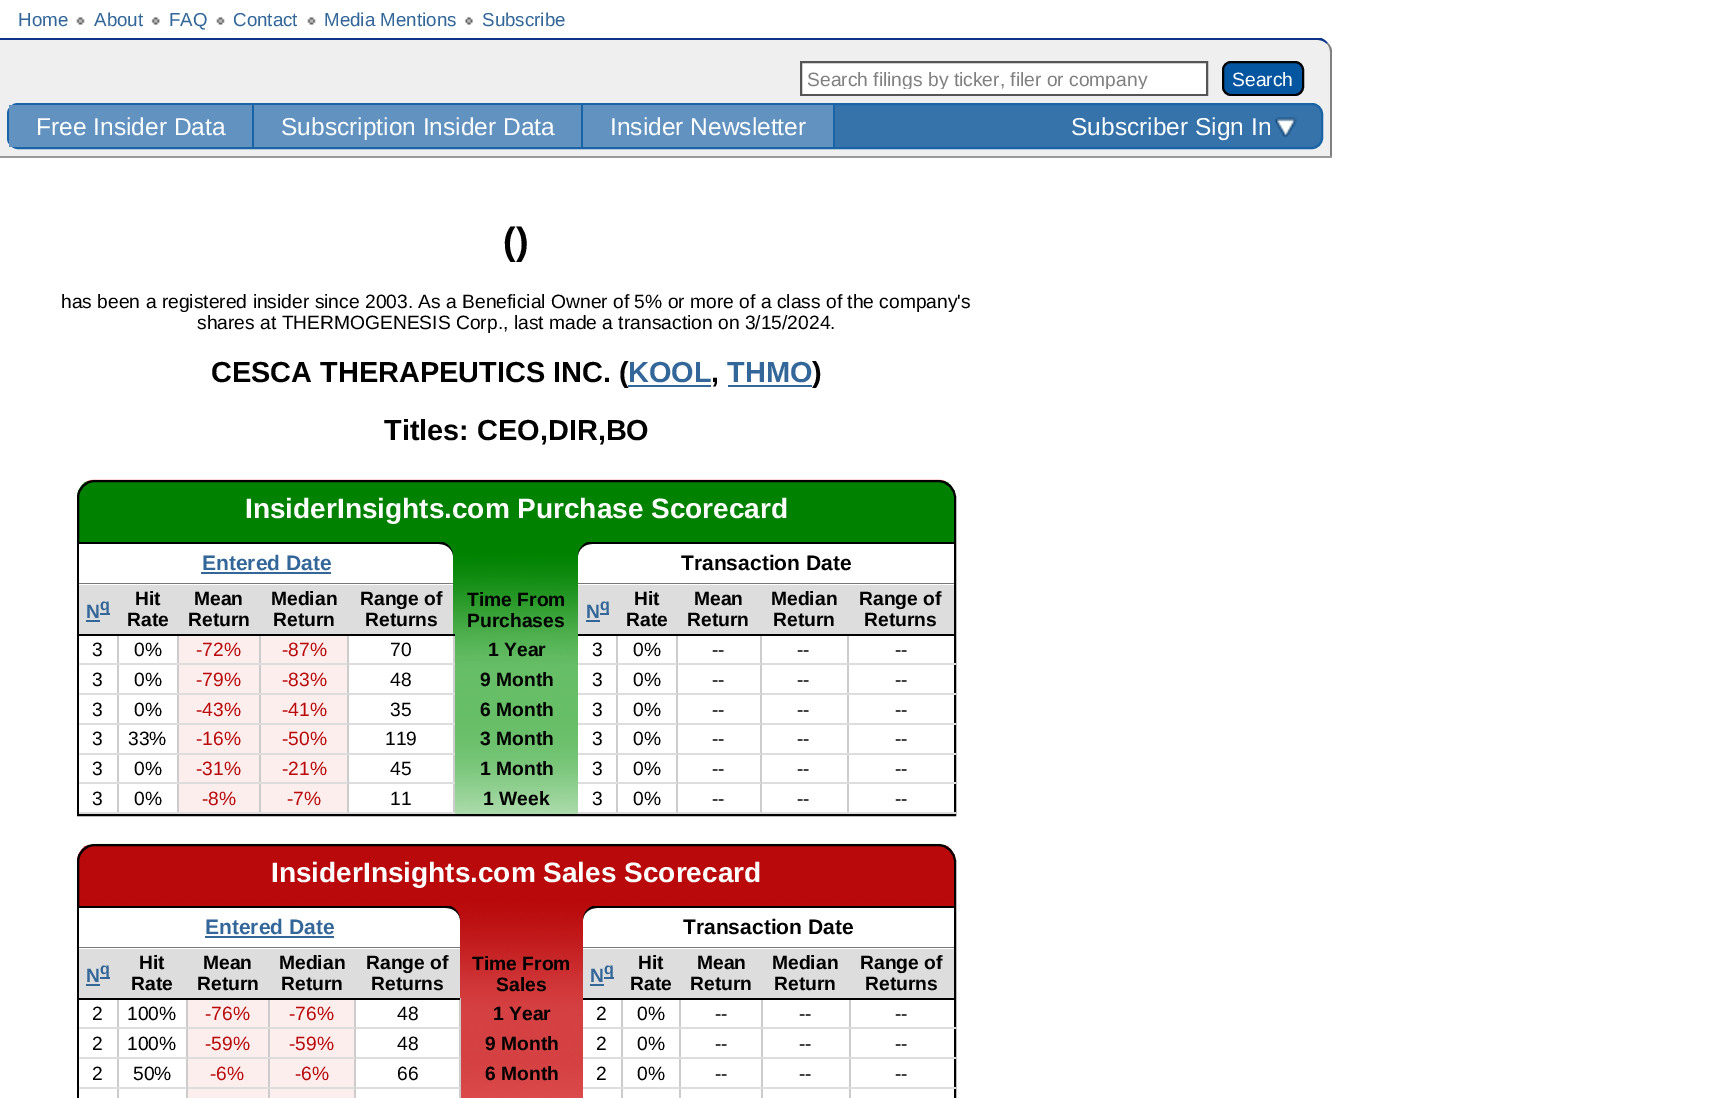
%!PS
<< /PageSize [1716 1098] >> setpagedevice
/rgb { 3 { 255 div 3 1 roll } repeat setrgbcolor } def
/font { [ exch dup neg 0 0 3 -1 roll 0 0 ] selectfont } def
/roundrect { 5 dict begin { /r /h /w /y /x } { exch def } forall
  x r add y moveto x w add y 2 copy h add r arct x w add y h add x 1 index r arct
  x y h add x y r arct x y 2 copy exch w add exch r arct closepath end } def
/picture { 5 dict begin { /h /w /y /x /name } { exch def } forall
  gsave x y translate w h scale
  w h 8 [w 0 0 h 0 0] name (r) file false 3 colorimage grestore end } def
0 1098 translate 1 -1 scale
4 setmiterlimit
255 255 255 rgb
0 0 1716 1098 rectfill
(img/1.rgb) 76 17 9 8 picture
(img/2.rgb) 151 17 9 8 picture
(img/1.rgb) 216 17 9 8 picture
(img/3.rgb) 307 17 9 8 picture
(img/4.rgb) 465 17 8 8 picture
239 239 239 rgb
0 39 moveto 1318 39 lineto 1325.5 39 1332 45.5 1332 53 curveto 1332 96 lineto 0 96 lineto closepath fill
12 52 137 rgb
0 40 moveto 1318 40 lineto 1321 40 1324 41 1327 44 curveto 1328 43 lineto 1326 41 1324 39 1321 38 curveto 0 38 lineto closepath fill
128 128 128 rgb
1332 50 moveto 1332 96 lineto 1330 96 lineto 1330 52 lineto 1330 49 1329 46 1327 44 curveto 1328 43 lineto 1330 45 1331 47 1332 50 curveto closepath fill
255 255 255 rgb
801 62 moveto 1207 62 lineto 1207 95 lineto 801 95 lineto closepath gsave fill grestore
85 85 85 rgb
2 setlinewidth
stroke
4 86 160 rgb
1223 62 80 33 8 roundrect gsave fill grestore
0 0 0 rgb
stroke
[
  [0 96 1330 60 239 239 239]
  [1330 96 2 62 128 128 128]
  [0 156 1332 2 153 153 153]
] { aload pop rgb rectfill } forall
54 115 171 rgb
8 104 1314 44 10 roundrect gsave fill grestore
25 99 167 rgb
stroke
[
  [9 105 243 42 98 147 192]
  [252 105 2 42 25 99 167]
  [254 105 327 42 98 147 192]
  [581 105 2 42 25 99 167]
  [583 105 250 42 98 147 192]
  [833 105 2 42 25 99 167]
] { aload pop rgb rectfill } forall
(img/5.rgb) 1274 117 23 21 picture
51 102 153 rgb
628 385 83 2 rectfill
728 385 84 2 rectfill
(img/6.rgb) 77 479 879 335 picture
0 0 0 rgb
95 481 moveto 938 481 lineto 947.5 481 955 488.5 955 498 curveto 955 815 lineto 78 815 lineto 78 498 lineto 78 488.5 85.5 481 95 481 curveto closepath stroke
255 255 255 rgb
79 543 moveto 439 543 lineto 446.5 543 453 549.5 453 557 curveto 453 585 lineto 79 585 lineto closepath fill
0 0 0 rgb
79 544 moveto 439 544 lineto 447 544 453 550 453 556 curveto 453 550 449 544 443 542 curveto 79 542 lineto closepath fill
119 119 119 rgb
79 583 374 1 rectfill
51 102 153 rgb
201 572 130 2 rectfill
255 255 255 rgb
592 543 moveto 954 543 lineto 954 585 lineto 578 585 lineto 578 557 lineto 578 549.5 584.5 543 592 543 curveto closepath fill
0 0 0 rgb
592 544 moveto 954 544 lineto 954 542 lineto 588 542 lineto 582 544 578 550 578 556 curveto 578 550 584 544 592 544 curveto closepath fill
[
  [578 583 376 1 119 119 119]
  [79 585 374 49 221 221 221]
  [86 620 14 2 51 102 153]
  [100 613 10 2 51 102 153]
  [453 634 2 180 204 204 204]
  [347 812 108 2 221 221 221]
  [347 782 2 32 204 204 204]
  [347 782 108 2 221 221 221]
  [347 753 2 31 204 204 204]
  [347 753 108 2 221 221 221]
  [347 723 2 31 204 204 204]
  [347 723 108 2 221 221 221]
  [347 693 2 32 204 204 204]
  [347 693 108 2 221 221 221]
  [347 663 2 32 204 204 204]
  [347 663 108 2 221 221 221]
  [347 634 2 31 204 204 204]
  [259 812 89 2 221 221 221]
  [259 782 2 32 204 204 204]
  [259 782 89 2 221 221 221]
  [259 753 2 31 204 204 204]
  [259 753 89 2 221 221 221]
  [259 723 2 31 204 204 204]
  [259 723 89 2 221 221 221]
  [259 693 2 32 204 204 204]
  [259 693 89 2 221 221 221]
  [259 663 2 32 204 204 204]
  [259 663 89 2 221 221 221]
  [259 634 2 31 204 204 204]
  [177 812 84 2 221 221 221]
  [177 782 2 32 204 204 204]
  [177 782 84 2 221 221 221]
  [177 753 2 31 204 204 204]
  [177 753 84 2 221 221 221]
  [177 723 2 31 204 204 204]
  [177 723 84 2 221 221 221]
  [177 693 2 32 204 204 204]
  [177 693 84 2 221 221 221]
  [177 663 2 32 204 204 204]
  [177 663 84 2 221 221 221]
  [177 634 2 31 204 204 204]
  [117 812 62 2 221 221 221]
  [117 782 2 32 204 204 204]
  [117 782 62 2 221 221 221]
  [117 753 2 31 204 204 204]
  [117 753 62 2 221 221 221]
  [117 723 2 31 204 204 204]
  [117 723 62 2 221 221 221]
  [117 693 2 32 204 204 204]
  [117 693 62 2 221 221 221]
  [117 663 2 32 204 204 204]
  [117 663 62 2 221 221 221]
  [117 634 2 31 204 204 204]
  [79 634 376 2 0 0 0]
  [578 585 376 49 221 221 221]
  [586 620 14 2 51 102 153]
  [600 613 9 2 51 102 153]
  [847 812 109 2 221 221 221]
  [847 782 2 32 204 204 204]
  [847 782 109 2 221 221 221]
  [847 753 2 31 204 204 204]
  [847 753 109 2 221 221 221]
  [847 723 2 31 204 204 204]
  [847 723 109 2 221 221 221]
  [847 693 2 32 204 204 204]
  [847 693 109 2 221 221 221]
  [847 663 2 32 204 204 204]
  [847 663 109 2 221 221 221]
  [847 634 2 31 204 204 204]
  [760 812 89 2 221 221 221]
  [760 782 2 32 204 204 204]
  [760 782 89 2 221 221 221]
  [760 753 2 31 204 204 204]
  [760 753 89 2 221 221 221]
  [760 723 2 31 204 204 204]
  [760 723 89 2 221 221 221]
  [760 693 2 32 204 204 204]
  [760 693 89 2 221 221 221]
  [760 663 2 32 204 204 204]
  [760 663 89 2 221 221 221]
  [760 634 2 31 204 204 204]
  [676 812 85 2 221 221 221]
  [676 782 2 32 204 204 204]
  [676 782 85 2 221 221 221]
  [676 753 2 31 204 204 204]
  [676 753 85 2 221 221 221]
  [676 723 2 31 204 204 204]
  [676 723 85 2 221 221 221]
  [676 693 2 32 204 204 204]
  [676 693 85 2 221 221 221]
  [676 663 2 32 204 204 204]
  [676 663 85 2 221 221 221]
  [676 634 2 31 204 204 204]
  [616 812 61 2 221 221 221]
  [616 782 2 32 204 204 204]
  [616 782 61 2 221 221 221]
  [616 753 2 31 204 204 204]
  [616 753 61 2 221 221 221]
  [616 723 2 31 204 204 204]
  [616 723 61 2 221 221 221]
  [616 693 2 32 204 204 204]
  [616 693 61 2 221 221 221]
  [616 663 2 32 204 204 204]
  [616 663 61 2 221 221 221]
  [616 634 2 31 204 204 204]
  [578 634 378 2 0 0 0]
  [79 636 38 27 255 255 255]
  [79 663 40 2 221 221 221]
  [119 636 58 27 255 255 255]
  [179 636 80 27 253 238 238]
  [261 636 86 27 253 238 238]
  [349 636 104 27 255 255 255]
  [578 636 38 27 255 255 255]
  [578 663 40 2 221 221 221]
  [618 636 58 27 255 255 255]
  [678 636 82 27 255 255 255]
  [762 636 85 27 255 255 255]
  [849 636 105 27 255 255 255]
  [79 665 38 28 255 255 255]
  [79 693 40 2 221 221 221]
  [119 665 58 28 255 255 255]
  [179 665 80 28 253 238 238]
  [261 665 86 28 253 238 238]
  [349 665 104 28 255 255 255]
  [578 665 38 28 255 255 255]
  [578 693 40 2 221 221 221]
  [618 665 58 28 255 255 255]
  [678 665 82 28 255 255 255]
  [762 665 85 28 255 255 255]
  [849 665 105 28 255 255 255]
  [79 695 38 28 255 255 255]
  [79 723 40 2 221 221 221]
  [119 695 58 28 255 255 255]
  [179 695 80 28 253 238 238]
  [261 695 86 28 253 238 238]
  [349 695 104 28 255 255 255]
  [578 695 38 28 255 255 255]
  [578 723 40 2 221 221 221]
  [618 695 58 28 255 255 255]
  [678 695 82 28 255 255 255]
  [762 695 85 28 255 255 255]
  [849 695 105 28 255 255 255]
  [79 725 38 28 255 255 255]
  [79 753 40 2 221 221 221]
  [119 725 58 28 255 255 255]
  [179 725 80 28 253 238 238]
  [261 725 86 28 253 238 238]
  [349 725 104 28 255 255 255]
  [578 725 38 28 255 255 255]
  [578 753 40 2 221 221 221]
  [618 725 58 28 255 255 255]
  [678 725 82 28 255 255 255]
  [762 725 85 28 255 255 255]
  [849 725 105 28 255 255 255]
  [79 755 38 27 255 255 255]
  [79 782 40 2 221 221 221]
  [119 755 58 27 255 255 255]
  [179 755 80 27 253 238 238]
  [261 755 86 27 253 238 238]
  [349 755 104 27 255 255 255]
  [578 755 38 27 255 255 255]
  [578 782 40 2 221 221 221]
  [618 755 58 27 255 255 255]
  [678 755 82 27 255 255 255]
  [762 755 85 27 255 255 255]
  [849 755 105 27 255 255 255]
  [79 784 38 28 255 255 255]
  [79 812 40 2 221 221 221]
  [119 784 58 28 255 255 255]
  [179 784 80 28 253 238 238]
  [261 784 86 28 253 238 238]
  [349 784 104 28 255 255 255]
  [578 784 38 28 255 255 255]
  [578 812 40 2 221 221 221]
  [618 784 58 28 255 255 255]
  [678 784 82 28 255 255 255]
  [762 784 85 28 255 255 255]
  [849 784 105 28 255 255 255]
] { aload pop rgb rectfill } forall
(img/7.rgb) 77 843 879 255 picture
0 0 0 rgb
95 845 moveto 938 845 lineto 947.5 845 955 852.5 955 862 curveto 955 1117 lineto 78 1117 lineto 78 862 lineto 78 852.5 85.5 845 95 845 curveto closepath stroke
255 255 255 rgb
79 907 moveto 446 907 lineto 453.5 907 460 913.5 460 921 curveto 460 949 lineto 79 949 lineto closepath fill
0 0 0 rgb
79 908 moveto 446 908 lineto 454 908 460 914 460 920 curveto 460 914 456 908 450 906 curveto 79 906 lineto closepath fill
119 119 119 rgb
79 947 381 1 rectfill
51 102 153 rgb
205 936 129 2 rectfill
255 255 255 rgb
597 907 moveto 954 907 lineto 954 949 lineto 583 949 lineto 583 921 lineto 583 913.5 589.5 907 597 907 curveto closepath fill
0 0 0 rgb
597 908 moveto 954 908 lineto 954 906 lineto 593 906 lineto 587 908 583 914 583 920 curveto 583 914 589 908 597 908 curveto closepath fill
[
  [583 947 371 1 119 119 119]
  [79 949 381 49 221 221 221]
  [86 984 14 2 51 102 153]
  [100 977 10 2 51 102 153]
  [459 998 2 100 204 204 204]
  [354 1087 2 11 204 204 204]
  [354 1087 106 2 221 221 221]
  [354 1057 2 32 204 204 204]
  [354 1057 106 2 221 221 221]
  [354 1027 2 32 204 204 204]
  [354 1027 106 2 221 221 221]
  [354 998 2 31 204 204 204]
  [268 1087 2 11 204 204 204]
  [268 1087 87 2 221 221 221]
  [268 1057 2 32 204 204 204]
  [268 1057 87 2 221 221 221]
  [268 1027 2 32 204 204 204]
  [268 1027 87 2 221 221 221]
  [268 998 2 31 204 204 204]
  [186 1087 2 11 204 204 204]
  [186 1087 84 2 221 221 221]
  [186 1057 2 32 204 204 204]
  [186 1057 84 2 221 221 221]
  [186 1027 2 32 204 204 204]
  [186 1027 84 2 221 221 221]
  [186 998 2 31 204 204 204]
  [117 1087 2 11 204 204 204]
  [117 1087 70 2 221 221 221]
  [117 1057 2 32 204 204 204]
  [117 1057 70 2 221 221 221]
  [117 1027 2 32 204 204 204]
  [117 1027 70 2 221 221 221]
  [117 998 2 31 204 204 204]
  [79 998 381 2 0 0 0]
  [583 949 371 49 221 221 221]
  [590 984 14 2 51 102 153]
  [604 977 10 2 51 102 153]
  [849 1087 2 11 204 204 204]
  [849 1087 107 2 221 221 221]
  [849 1057 2 32 204 204 204]
  [849 1057 107 2 221 221 221]
  [849 1027 2 32 204 204 204]
  [849 1027 107 2 221 221 221]
  [849 998 2 31 204 204 204]
  [761 1087 2 11 204 204 204]
  [761 1087 90 2 221 221 221]
  [761 1057 2 32 204 204 204]
  [761 1057 90 2 221 221 221]
  [761 1027 2 32 204 204 204]
  [761 1027 90 2 221 221 221]
  [761 998 2 31 204 204 204]
  [679 1087 2 11 204 204 204]
  [679 1087 84 2 221 221 221]
  [679 1057 2 32 204 204 204]
  [679 1057 84 2 221 221 221]
  [679 1027 2 32 204 204 204]
  [679 1027 84 2 221 221 221]
  [679 998 2 31 204 204 204]
  [621 1087 2 11 204 204 204]
  [621 1087 60 2 221 221 221]
  [621 1057 2 32 204 204 204]
  [621 1057 60 2 221 221 221]
  [621 1027 2 32 204 204 204]
  [621 1027 60 2 221 221 221]
  [621 998 2 31 204 204 204]
  [583 998 373 2 0 0 0]
  [79 1089 38 9 255 255 255]
  [119 1089 67 9 255 255 255]
  [188 1089 80 9 253 238 238]
  [270 1089 84 9 253 238 238]
  [356 1089 103 9 255 255 255]
  [583 1089 38 9 255 255 255]
  [623 1089 56 9 255 255 255]
  [681 1089 80 9 255 255 255]
  [763 1089 86 9 255 255 255]
  [851 1089 103 9 255 255 255]
  [79 1000 38 27 255 255 255]
  [79 1027 40 2 221 221 221]
  [119 1000 67 27 255 255 255]
  [188 1000 80 27 253 238 238]
  [270 1000 84 27 253 238 238]
  [356 1000 103 27 255 255 255]
  [583 1000 38 27 255 255 255]
  [583 1027 40 2 221 221 221]
  [623 1000 56 27 255 255 255]
  [681 1000 80 27 255 255 255]
  [763 1000 86 27 255 255 255]
  [851 1000 103 27 255 255 255]
  [79 1029 38 28 255 255 255]
  [79 1057 40 2 221 221 221]
  [119 1029 67 28 255 255 255]
  [188 1029 80 28 253 238 238]
  [270 1029 84 28 253 238 238]
  [356 1029 103 28 255 255 255]
  [583 1029 38 28 255 255 255]
  [583 1057 40 2 221 221 221]
  [623 1029 56 28 255 255 255]
  [681 1029 80 28 255 255 255]
  [763 1029 86 28 255 255 255]
  [851 1029 103 28 255 255 255]
  [79 1059 38 28 255 255 255]
  [79 1087 40 2 221 221 221]
  [119 1059 67 28 255 255 255]
  [188 1059 80 28 253 238 238]
  [270 1059 84 28 253 238 238]
  [356 1059 103 28 255 255 255]
  [583 1059 38 28 255 255 255]
  [583 1087 40 2 221 221 221]
  [623 1059 56 28 255 255 255]
  [681 1059 80 28 255 255 255]
  [763 1059 86 28 255 255 255]
  [851 1059 103 28 255 255 255]
] { aload pop rgb rectfill } forall
/LiberationSans-Regular 18.75 font
51 102 153 rgb
[
  [(Home) 18 26]
  [(About) 94 26]
  [(FAQ) 169 26]
  [(Contact) 233 26]
  [(Media Mentions) 324 26]
  [(Subscribe) 482 26]
] { aload pop moveto show } forall
gsave
807 68 394 21 rectclip
/LiberationSans-Regular 19.25 font
128 128 128 rgb
807 86 moveto (Search filings by ticker, filer or company) show
grestore
/LiberationSans-Regular 19.25 font
255 255 255 rgb
1232 86 moveto (Search) show
/LiberationSans-Regular 24.5 font
[
  [(Free Insider Data) 36 135]
  [(Subscription Insider Data) 281 135]
  [(Insider Newsletter) 610 135]
  [(Subscriber Sign In) 1071 135]
] { aload pop moveto show } forall
/LiberationSans-Bold 38 font
0 0 0 rgb
503 254 moveto (\(\)) show
/LiberationSans-Regular 19.25 font
61 308 moveto (has been a registered insider since 2003. As a Beneficial Owner of 5% or more of a class of the company's) show
197 329 moveto (shares at THERMOGENESIS Corp., last made a transaction on 3/15/2024.) show
/LiberationSans-Bold 28.9 font
211 382 moveto (CESCA THERAPEUTICS INC. \() show
51 102 153 rgb
628 382 moveto (KOOL) show
0 0 0 rgb
711 382 moveto (,) show
51 102 153 rgb
727 382 moveto (THMO) show
0 0 0 rgb
812 382 moveto (\)) show
384 440 moveto (Titles: CEO,DIR,BO) show
/LiberationSans-Bold 28 font
255 255 255 rgb
245 518 moveto (InsiderInsights.com Purchase Scorecard) show
/LiberationSans-Bold 21 font
51 102 153 rgb
202 570 moveto (Entered Date) show
0 0 0 rgb
681 570 moveto (Transaction Date) show
/LiberationSans-Bold 19.25 font
51 102 153 rgb
86 618 moveto (N) show
/LiberationSans-Bold 16 font
100 610 moveto (q) show
/LiberationSans-Bold 19.25 font
0 0 0 rgb
[
  [(Hit) 135 605]
  [(Rate) 127 626]
  [(Mean) 194 605]
  [(Return) 188 626]
  [(Median) 271 605]
  [(Return) 273 626]
  [(Range of) 360 605]
  [(Returns) 365 626]
  [(Time From) 467 606]
  [(Purchases) 467 627]
] { aload pop moveto show } forall
51 102 153 rgb
586 618 moveto (N) show
/LiberationSans-Bold 16 font
600 610 moveto (q) show
/LiberationSans-Bold 19.25 font
0 0 0 rgb
[
  [(Hit) 634 605]
  [(Rate) 626 626]
  [(Mean) 694 605]
  [(Return) 687 626]
  [(Median) 771 605]
  [(Return) 773 626]
  [(Range of) 859 605]
  [(Returns) 864 626]
] { aload pop moveto show } forall
/LiberationSans-Regular 19.25 font
92 656 moveto (3) show
134 656 moveto (0%) show
185 9 11 rgb
196 656 moveto (-72%) show
282 656 moveto (-87%) show
0 0 0 rgb
390 656 moveto (70) show
/LiberationSans-Bold 19.25 font
488 656 moveto (1 Year) show
/LiberationSans-Regular 19.25 font
[
  [(3) 592 656]
  [(0%) 633 656]
  [(--) 712 656]
  [(--) 797 656]
  [(--) 895 656]
  [(3) 92 686]
  [(0%) 134 686]
] { aload pop moveto show } forall
185 9 11 rgb
196 686 moveto (-79%) show
282 686 moveto (-83%) show
0 0 0 rgb
390 686 moveto (48) show
/LiberationSans-Bold 19.25 font
480 686 moveto (9 Month) show
/LiberationSans-Regular 19.25 font
[
  [(3) 592 686]
  [(0%) 633 686]
  [(--) 712 686]
  [(--) 797 686]
  [(--) 895 686]
  [(3) 92 716]
  [(0%) 134 716]
] { aload pop moveto show } forall
185 9 11 rgb
196 716 moveto (-43%) show
282 716 moveto (-41%) show
0 0 0 rgb
390 716 moveto (35) show
/LiberationSans-Bold 19.25 font
480 716 moveto (6 Month) show
/LiberationSans-Regular 19.25 font
[
  [(3) 592 716]
  [(0%) 633 716]
  [(--) 712 716]
  [(--) 797 716]
  [(--) 895 716]
  [(3) 92 745]
  [(33%) 128 745]
] { aload pop moveto show } forall
185 9 11 rgb
196 745 moveto (-16%) show
282 745 moveto (-50%) show
0 0 0 rgb
385 745 moveto (119) show
/LiberationSans-Bold 19.25 font
480 745 moveto (3 Month) show
/LiberationSans-Regular 19.25 font
[
  [(3) 592 745]
  [(0%) 633 745]
  [(--) 712 745]
  [(--) 797 745]
  [(--) 895 745]
  [(3) 92 775]
  [(0%) 134 775]
] { aload pop moveto show } forall
185 9 11 rgb
196 775 moveto (-31%) show
282 775 moveto (-21%) show
0 0 0 rgb
390 775 moveto (45) show
/LiberationSans-Bold 19.25 font
480 775 moveto (1 Month) show
/LiberationSans-Regular 19.25 font
[
  [(3) 592 775]
  [(0%) 633 775]
  [(--) 712 775]
  [(--) 797 775]
  [(--) 895 775]
  [(3) 92 805]
  [(0%) 134 805]
] { aload pop moveto show } forall
185 9 11 rgb
202 805 moveto (-8%) show
287 805 moveto (-7%) show
0 0 0 rgb
390 805 moveto (11) show
/LiberationSans-Bold 19.25 font
483 805 moveto (1 Week) show
/LiberationSans-Regular 19.25 font
[
  [(3) 592 805]
  [(0%) 633 805]
  [(--) 712 805]
  [(--) 797 805]
  [(--) 895 805]
] { aload pop moveto show } forall
/LiberationSans-Bold 28 font
255 255 255 rgb
271 882 moveto (InsiderInsights.com Sales Scorecard) show
/LiberationSans-Bold 21 font
51 102 153 rgb
205 934 moveto (Entered Date) show
0 0 0 rgb
683 934 moveto (Transaction Date) show
/LiberationSans-Bold 19.25 font
51 102 153 rgb
86 982 moveto (N) show
/LiberationSans-Bold 16 font
100 974 moveto (q) show
/LiberationSans-Bold 19.25 font
0 0 0 rgb
[
  [(Hit) 139 969]
  [(Rate) 131 990]
  [(Mean) 203 969]
  [(Return) 197 990]
  [(Median) 279 969]
  [(Return) 281 990]
  [(Range of) 366 969]
  [(Returns) 371 990]
  [(Time From) 472 970]
  [(Sales) 496 991]
] { aload pop moveto show } forall
51 102 153 rgb
590 982 moveto (N) show
/LiberationSans-Bold 16 font
604 974 moveto (q) show
/LiberationSans-Bold 19.25 font
0 0 0 rgb
[
  [(Hit) 638 969]
  [(Rate) 630 990]
  [(Mean) 697 969]
  [(Return) 690 990]
  [(Median) 772 969]
  [(Return) 774 990]
  [(Range of) 860 969]
  [(Returns) 865 990]
] { aload pop moveto show } forall
/LiberationSans-Regular 19.25 font
92 1020 moveto (2) show
127 1020 moveto (100%) show
185 9 11 rgb
205 1020 moveto (-76%) show
289 1020 moveto (-76%) show
0 0 0 rgb
397 1020 moveto (48) show
/LiberationSans-Bold 19.25 font
493 1020 moveto (1 Year) show
/LiberationSans-Regular 19.25 font
[
  [(2) 596 1020]
  [(0%) 637 1020]
  [(--) 715 1020]
  [(--) 799 1020]
  [(--) 895 1020]
  [(2) 92 1050]
  [(100%) 127 1050]
] { aload pop moveto show } forall
185 9 11 rgb
205 1050 moveto (-59%) show
289 1050 moveto (-59%) show
0 0 0 rgb
397 1050 moveto (48) show
/LiberationSans-Bold 19.25 font
485 1050 moveto (9 Month) show
/LiberationSans-Regular 19.25 font
[
  [(2) 596 1050]
  [(0%) 637 1050]
  [(--) 715 1050]
  [(--) 799 1050]
  [(--) 895 1050]
  [(2) 92 1080]
  [(50%) 133 1080]
] { aload pop moveto show } forall
185 9 11 rgb
210 1080 moveto (-6%) show
295 1080 moveto (-6%) show
0 0 0 rgb
397 1080 moveto (66) show
/LiberationSans-Bold 19.25 font
485 1080 moveto (6 Month) show
/LiberationSans-Regular 19.25 font
[
  [(2) 596 1080]
  [(0%) 637 1080]
  [(--) 715 1080]
  [(--) 799 1080]
  [(--) 895 1080]
] { aload pop moveto show } forall
showpage
